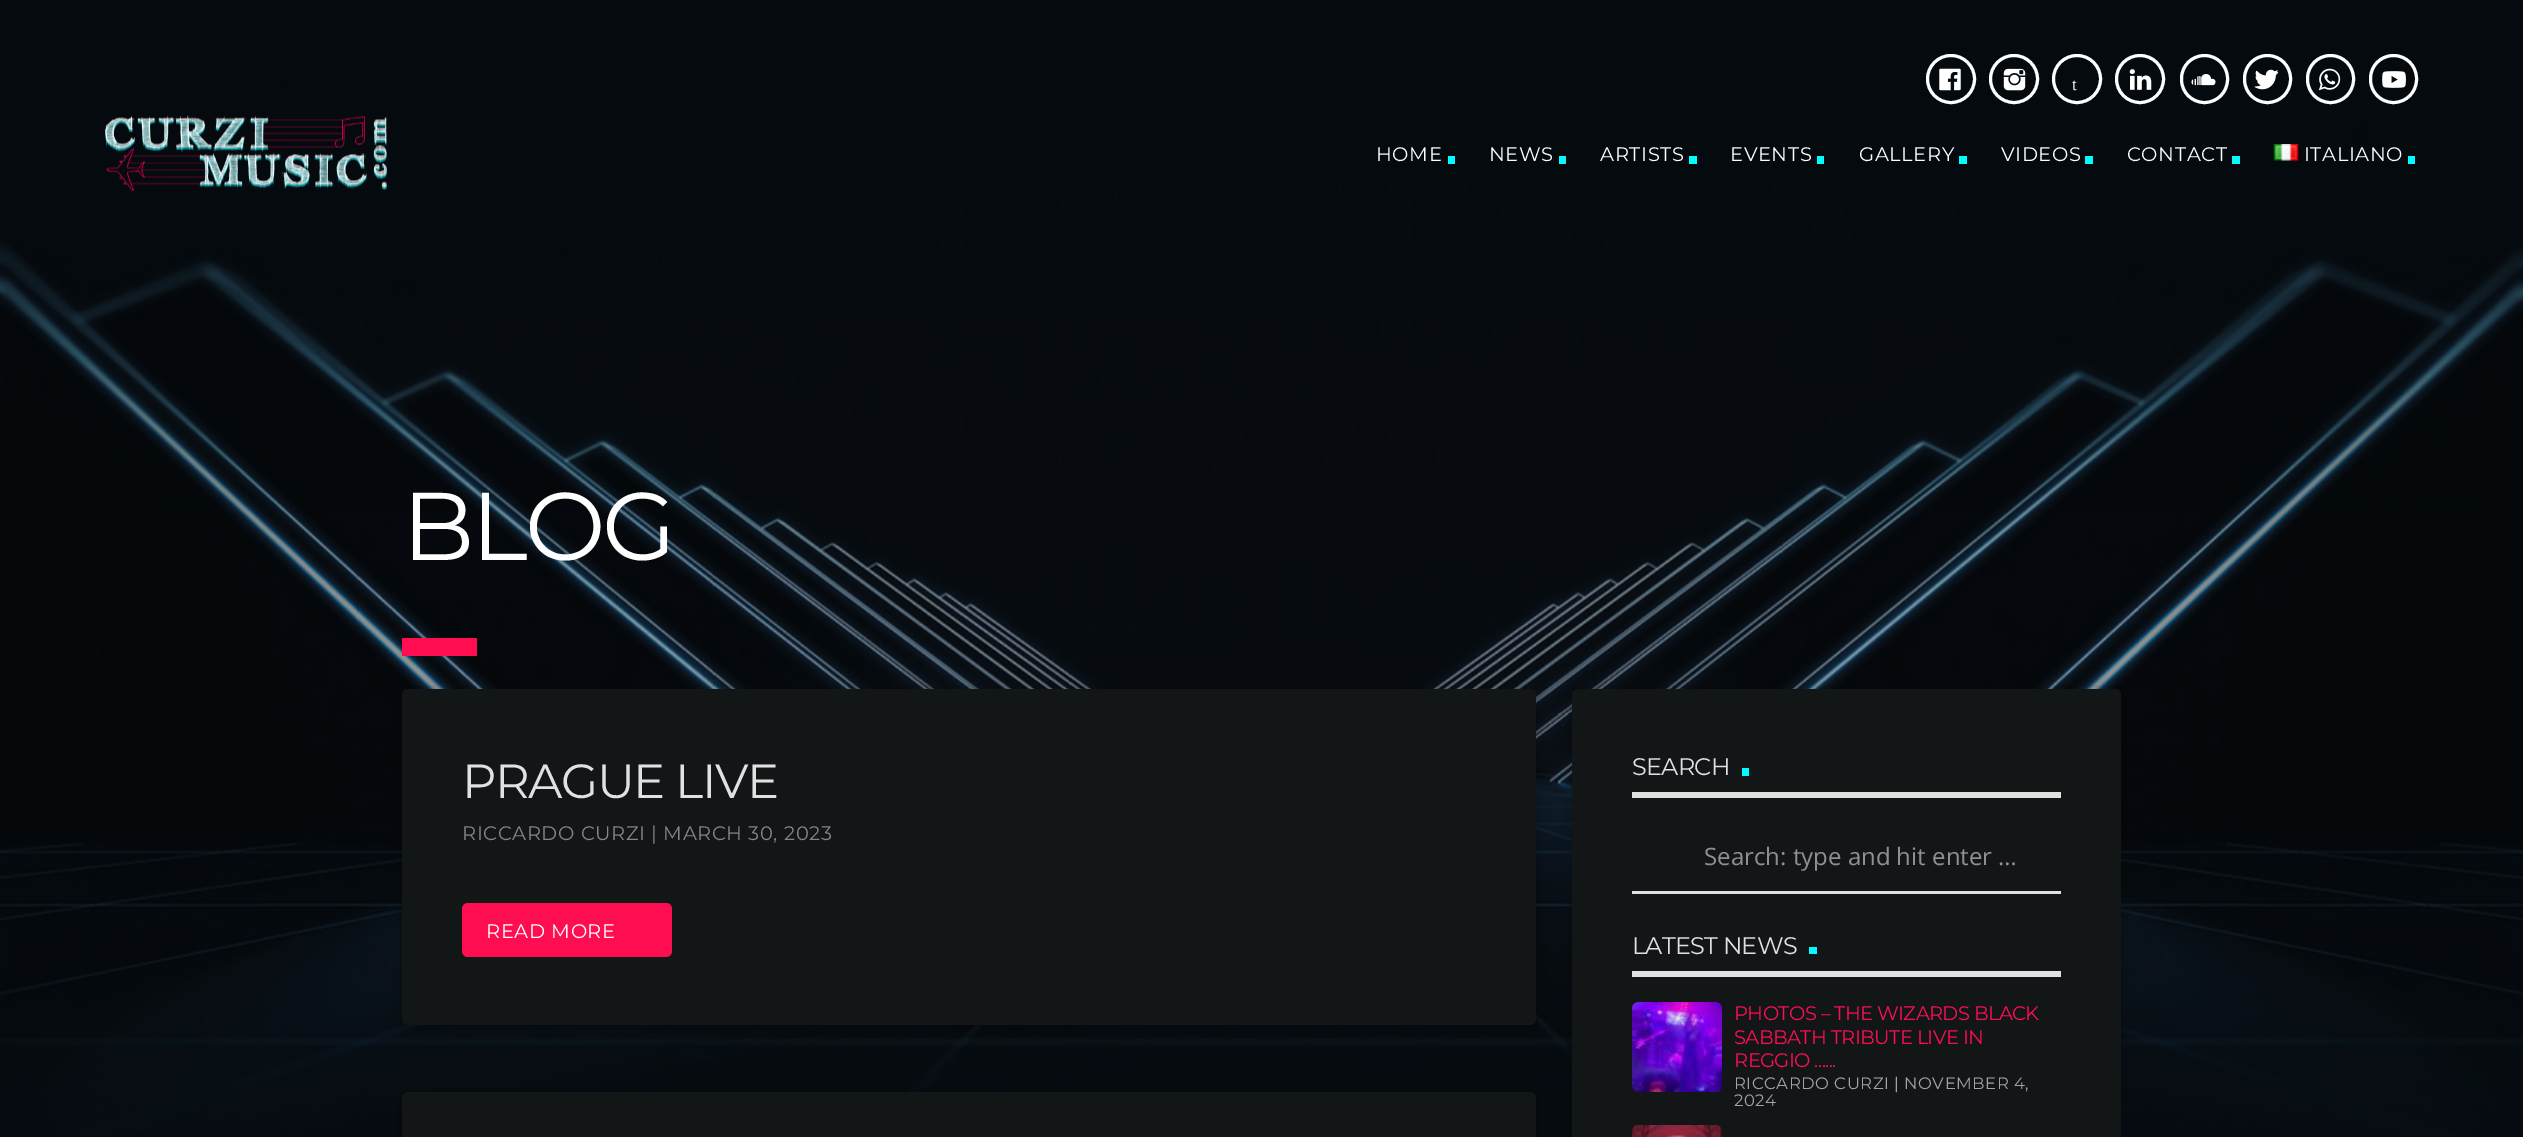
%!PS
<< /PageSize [2523 1137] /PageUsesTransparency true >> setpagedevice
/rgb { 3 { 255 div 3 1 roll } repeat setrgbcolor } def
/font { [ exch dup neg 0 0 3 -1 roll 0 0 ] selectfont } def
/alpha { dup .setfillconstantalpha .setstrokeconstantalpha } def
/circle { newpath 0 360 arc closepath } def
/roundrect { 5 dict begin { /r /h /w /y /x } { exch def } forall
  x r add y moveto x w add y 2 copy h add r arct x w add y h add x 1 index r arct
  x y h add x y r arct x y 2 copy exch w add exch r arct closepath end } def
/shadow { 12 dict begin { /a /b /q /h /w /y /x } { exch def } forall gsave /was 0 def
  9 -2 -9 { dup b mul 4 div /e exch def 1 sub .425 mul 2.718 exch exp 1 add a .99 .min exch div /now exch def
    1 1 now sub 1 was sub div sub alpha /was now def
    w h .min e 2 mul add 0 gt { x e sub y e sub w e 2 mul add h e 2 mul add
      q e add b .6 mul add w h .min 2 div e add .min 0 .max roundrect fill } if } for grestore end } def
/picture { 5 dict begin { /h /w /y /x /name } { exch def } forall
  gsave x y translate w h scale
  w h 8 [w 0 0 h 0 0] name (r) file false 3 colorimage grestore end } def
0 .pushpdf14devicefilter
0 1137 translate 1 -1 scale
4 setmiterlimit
255 255 255 rgb
0 0 2523 1137 rectfill
(img/10.rgb) 0 0 2523 1137 picture
3 setlinewidth
1951 79 23.5 circle stroke
(img/1.rgb) 1939 68 22 23 picture
2014 79 23.5 circle stroke
(img/2.rgb) 2003 68 23 23 picture
2077 79 23.5 circle stroke
2140 79 23.5 circle stroke
(img/3.rgb) 2129 69 23 21 picture
2181.5 55.5 46 47 23 roundrect stroke
(img/4.rgb) 2191 74 25 12 picture
2244.5 55.5 46 47 23 roundrect stroke
(img/5.rgb) 2254 69 25 21 picture
2307.5 55.5 46 47 23 roundrect stroke
(img/6.rgb) 2318 68 23 23 picture
2370.5 55.5 46 47 23 roundrect stroke
(img/7.rgb) 2382 71 24 17 picture
(img/8.rgb) 105 115 282 76 picture
[
  [1448 156 7 8 0 252 255]
  [1559 156 7 8 0 252 255]
  [1689 156 8 8 0 252 255]
  [1817 156 7 8 0 252 255]
  [1959 156 8 8 0 252 255]
  [2085 156 8 8 0 252 255]
  [2232 156 8 8 0 252 255]
] { aload pop rgb rectfill } forall
(img/9.rgb) 2273 144 26 17 picture
2408 156 7 8 rectfill
255 13 81 rgb
402 638 75 18 rectfill
0 0 0 rgb
402 692 1134 336 6 9 0.3 shadow
19 22 23 rgb
402 689 1134 336 6 roundrect fill
255 13 81 rgb
462 903 210 54 6 roundrect fill
0 0 0 rgb
402 1095 1134 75 6 9 0.3 shadow
19 22 23 rgb
402 1092 1134 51 6 roundrect fill
0 0 0 rgb
1572 692 549 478 6 9 0.3 shadow
19 22 23 rgb
1572 689 549 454 6 roundrect fill
[
  [1632 792 429 6 224 225 225]
  [1742 768 7 8 0 252 255]
  [1632 891 429 3 224 225 225]
  [1632 971 429 6 224 225 225]
  [1809 947 8 7 0 252 255]
] { aload pop rgb rectfill } forall
(img/11.rgb) 1632 1002 90 90 picture
(img/12.rgb) 1632 1125 90 12 picture
/LiberationSerif-Regular 17 font
255 255 255 rgb
2072 90 moveto (t) show
/Montserrat-Thin 19.5 font
1376 161 moveto 0.6 0 (HOME) ashow
1489 161 moveto 0.6 0 (NEWS) ashow
1600 161 moveto 0.6 0 (ARTISTS) ashow
1730 161 moveto 0.6 0 (EVENTS) ashow
1859 161 moveto 0.6 0 (GALLERY) ashow
2001 161 moveto 0.6 0 (VIDEOS) ashow
2127 161 moveto 0.6 0 (CONTACT) ashow
2304 161 moveto 0.6 0 (ITALIANO) ashow
/Montserrat-Thin 96 font
402 560 moveto -3 0 (BLOG) ashow
/Montserrat-Thin 48 font
224 225 225 rgb
462 798 moveto -1.5 0 (PRAGUE LIVE) ashow
/Montserrat-Thin 19.5 font
132 133 134 rgb
462 840 moveto 0.6 0 (RICCARDO CURZI | MARCH 30, 2023) ashow
255 255 255 rgb
486 938 moveto 0.6 0 (READ MORE) ashow
/Montserrat-Thin 24 font
224 225 225 rgb
1632 775 moveto -0.75 0 (SEARCH) ashow
/OpenSans-Regular 24 font
143 144 144 rgb
1704 865 moveto (Search: type and hit enter …) show
/Montserrat-Thin 24 font
224 225 225 rgb
1632 954 moveto -0.75 0 (LATEST NEWS) ashow
/Montserrat-Thin 19.5 font
255 13 81 rgb
1734 1020 moveto -0.6 0 (PHOTOS – THE WIZARDS BLACK) ashow
1734 1044 moveto -0.6 0 (SABBATH TRIBUTE LIVE IN) ashow
1734 1067 moveto -0.6 0 (REGGIO ......) ashow
/Montserrat-Thin 16.5 font
163 164 164 rgb
1734 1089 moveto 0.5 0 (RICCARDO CURZI | NOVEMBER 4,) ashow
1734 1106 moveto 0.5 0 (2024) ashow
.poppdf14devicefilter showpage
